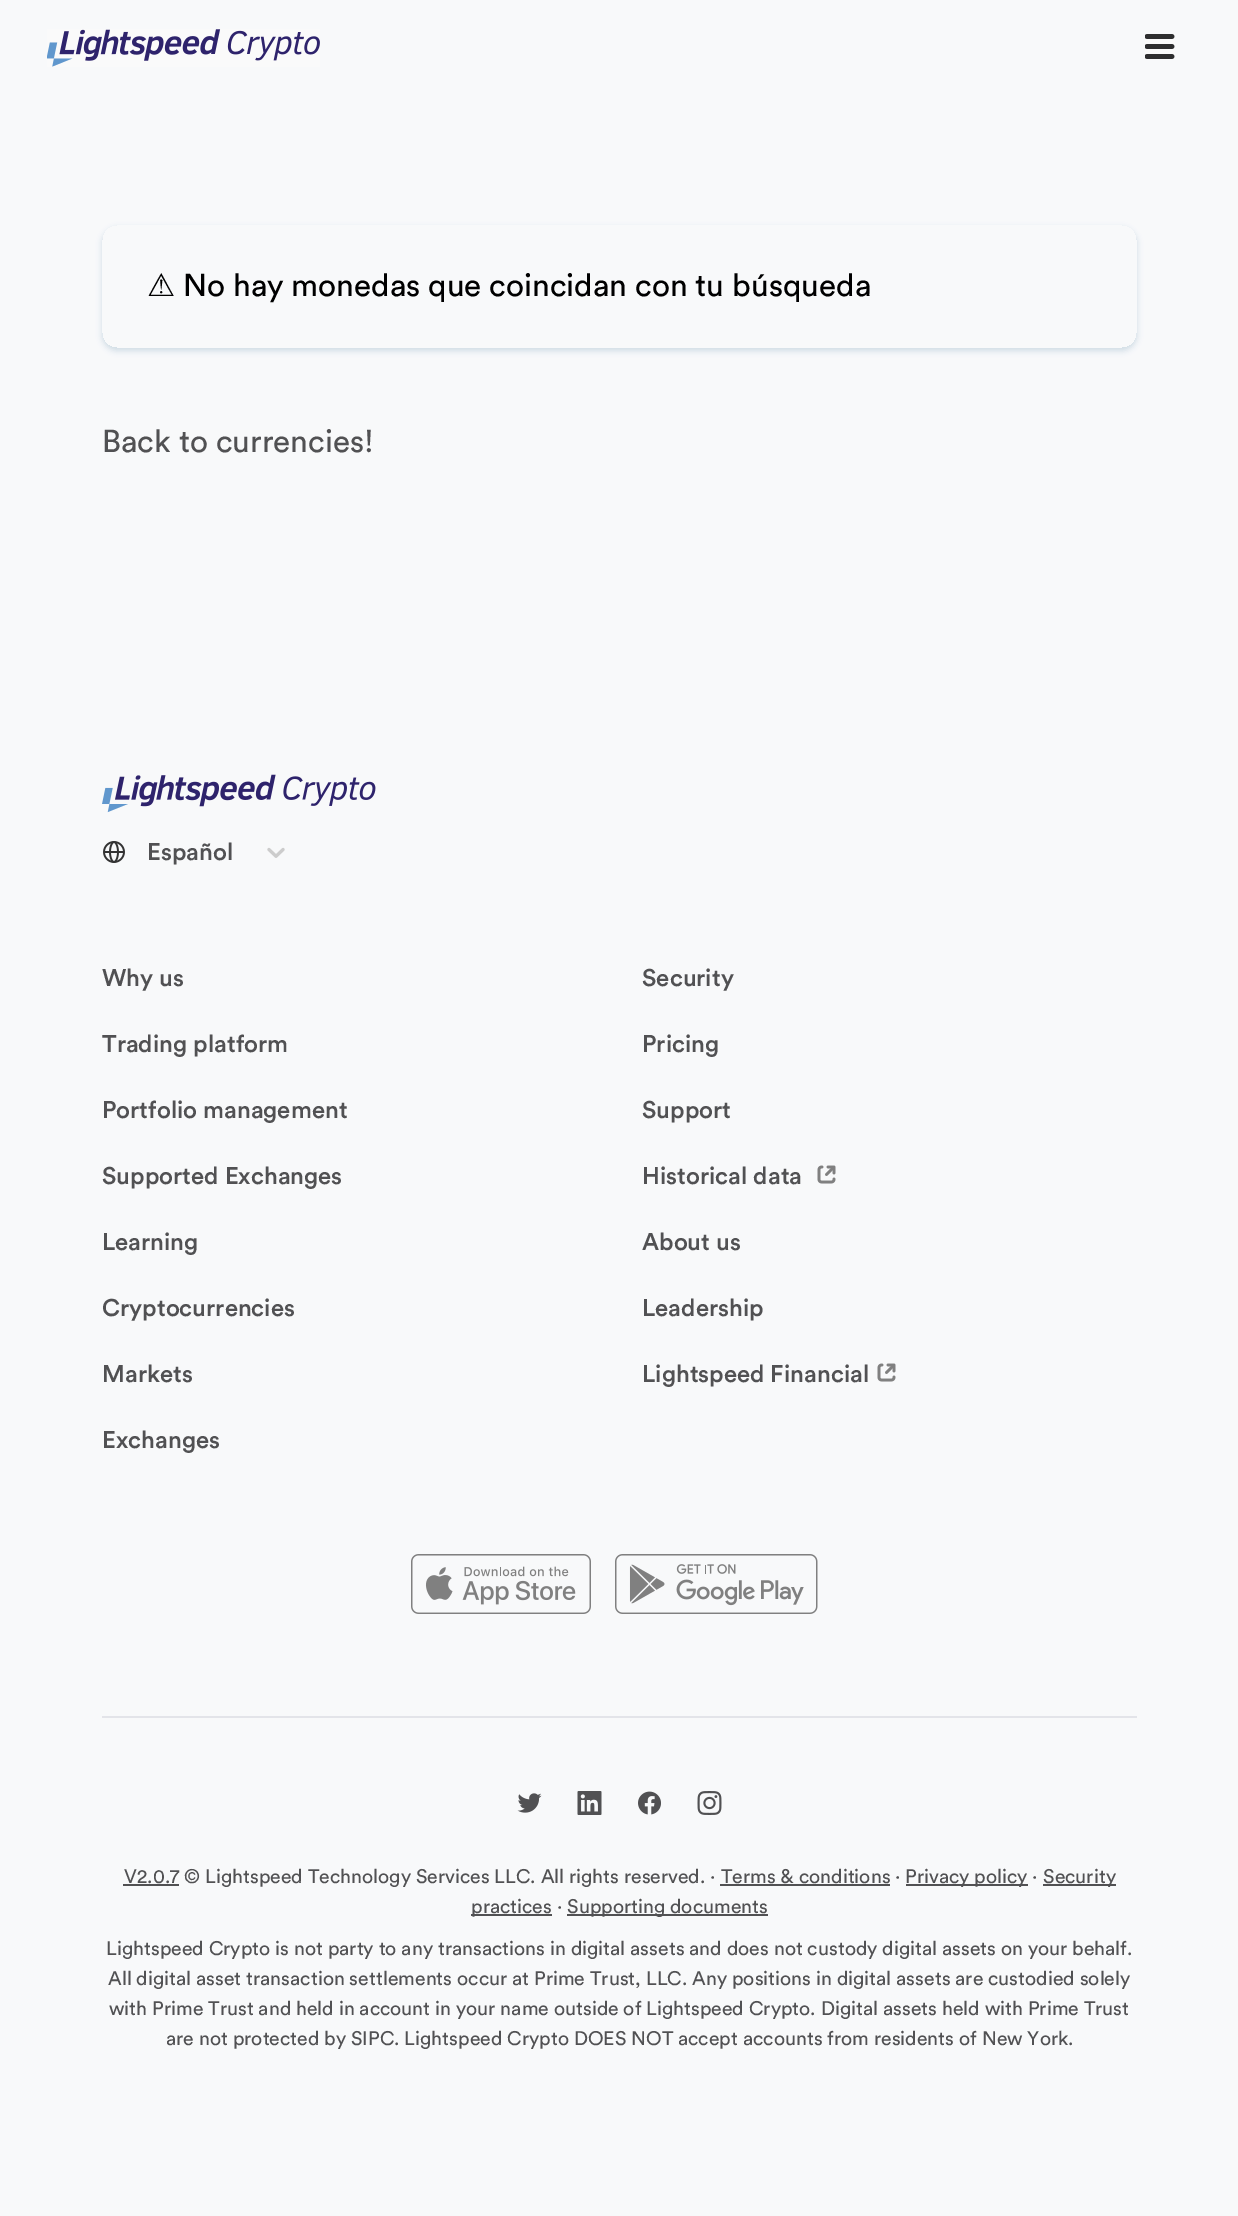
%!PS
<< /PageSize [1238 2216] /PageUsesTransparency true >> setpagedevice
/rgb { 3 { 255 div 3 1 roll } repeat setrgbcolor } def
/font { [ exch dup neg 0 0 3 -1 roll 0 0 ] selectfont } def
/alpha { dup .setfillconstantalpha .setstrokeconstantalpha } def
/roundrect { 5 dict begin { /r /h /w /y /x } { exch def } forall
  x r add y moveto x w add y 2 copy h add r arct x w add y h add x 1 index r arct
  x y h add x y r arct x y 2 copy exch w add exch r arct closepath end } def
/shadow { 12 dict begin { /a /b /q /h /w /y /x } { exch def } forall gsave /was 0 def
  9 -2 -9 { dup b mul 4 div /e exch def 1 sub .425 mul 2.718 exch exp 1 add a .99 .min exch div /now exch def
    1 1 now sub 1 was sub div sub alpha /was now def
    w h .min e 2 mul add 0 gt { x e sub y e sub w e 2 mul add h e 2 mul add
      q e add b .6 mul add w h .min 2 div e add .min 0 .max roundrect fill } if } for grestore end } def
/picture { 5 dict begin { /h /w /y /x /name } { exch def } forall
  gsave x y translate w h scale
  w h 8 [w 0 0 h 0 0] name (r) file false 3 colorimage grestore end } def
0 .pushpdf14devicefilter
0 2216 translate 1 -1 scale
4 setmiterlimit
248 249 250 rgb
0 0 1238 2216 rectfill
(img/1.rgb) 47 29 273 38 picture
(img/2.rgb) 1145 34 30 25 picture
gsave
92 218 moveto 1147 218 lineto 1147 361 lineto 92 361 lineto closepath 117 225 moveto 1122 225 lineto 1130.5 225 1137 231.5 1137 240 curveto 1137 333 lineto 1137 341.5 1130.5 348 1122 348 curveto 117 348 lineto 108.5 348 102 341.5 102 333 curveto 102 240 lineto 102 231.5 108.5 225 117 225 curveto closepath eoclip newpath
14 86 124 rgb
102 228 1035 123 15 3 0.17 shadow
grestore
(img/3.rgb) 102 774 274 39 picture
(img/4.rgb) 103 841 22 22 picture
(img/5.rgb) 267 847 18 11 picture
(img/6.rgb) 817 1165 19 19 picture
(img/6.rgb) 877 1363 19 19 picture
(img/7.rgb) 411 1554 180 60 picture
(img/8.rgb) 615 1554 203 60 picture
227 228 233 rgb
102 1716 1035 2 rectfill
(img/9.rgb) 517 1793 25 20 picture
(img/10.rgb) 577 1791 25 24 picture
(img/11.rgb) 638 1791 23 24 picture
(img/12.rgb) 697 1791 25 24 picture
[
  [123 1884 56 2 81 81 83]
  [906 1884 122 2 81 81 83]
  [1043 1884 73 2 81 81 83]
  [720 1884 170 2 81 81 83]
  [471 1914 81 2 81 81 83]
  [567 1914 201 2 81 81 83]
] { aload pop rgb rectfill } forall
/DejaVuSans-Regular 31.5 font
0 0 0 rgb
147 296 moveto (⚠) show
/Circular-Regular 31.5 font
183 296 moveto (No hay monedas que coincidan con tu búsqueda) show
81 81 83 rgb
102 452 moveto (Back to currencies!) show
/Circular-Medium 24 font
[
  [(Español) 147 860]
  [(Why us) 102 986]
  [(Trading platform) 102 1052]
  [(Portfolio management) 102 1118]
  [(Supported Exchanges) 102 1184]
  [(Security) 642 986]
  [(Pricing) 642 1052]
  [(Support) 642 1118]
  [(Historical data) 642 1184]
  [(Learning) 102 1250]
  [(Cryptocurrencies) 102 1316]
  [(Markets) 102 1382]
  [(Exchanges) 102 1448]
  [(About us) 642 1250]
  [(Leadership) 642 1316]
  [(Lightspeed Financial) 642 1382]
] { aload pop moveto show } forall
/Circular-Regular 19.5 font
[
  [(V2.0.7 © Lightspeed Technology Services LLC. All rights reserved. · Terms & conditions ·) 124 1883]
  [(Privacy policy) 905 1883]
  [(·) 1032 1883]
  [(Security) 1043 1883]
  [(practices) 471 1913]
  [(·) 557 1913]
  [(Supporting documents) 567 1913]
  [(Lightspeed Crypto is not party to any transactions in digital assets and does not custody digital assets on your behalf.) 106 1955]
  [(All digital asset transaction settlements occur at Prime Trust, LLC. Any positions in digital assets are custodied solely) 108 1985]
  [(with Prime Trust and held in account in your name outside of Lightspeed Crypto. Digital assets held with Prime Trust) 109 2015]
  [(are not protected by SIPC. Lightspeed Crypto DOES NOT accept accounts from residents of New York.) 166 2045]
] { aload pop moveto show } forall
.poppdf14devicefilter showpage
